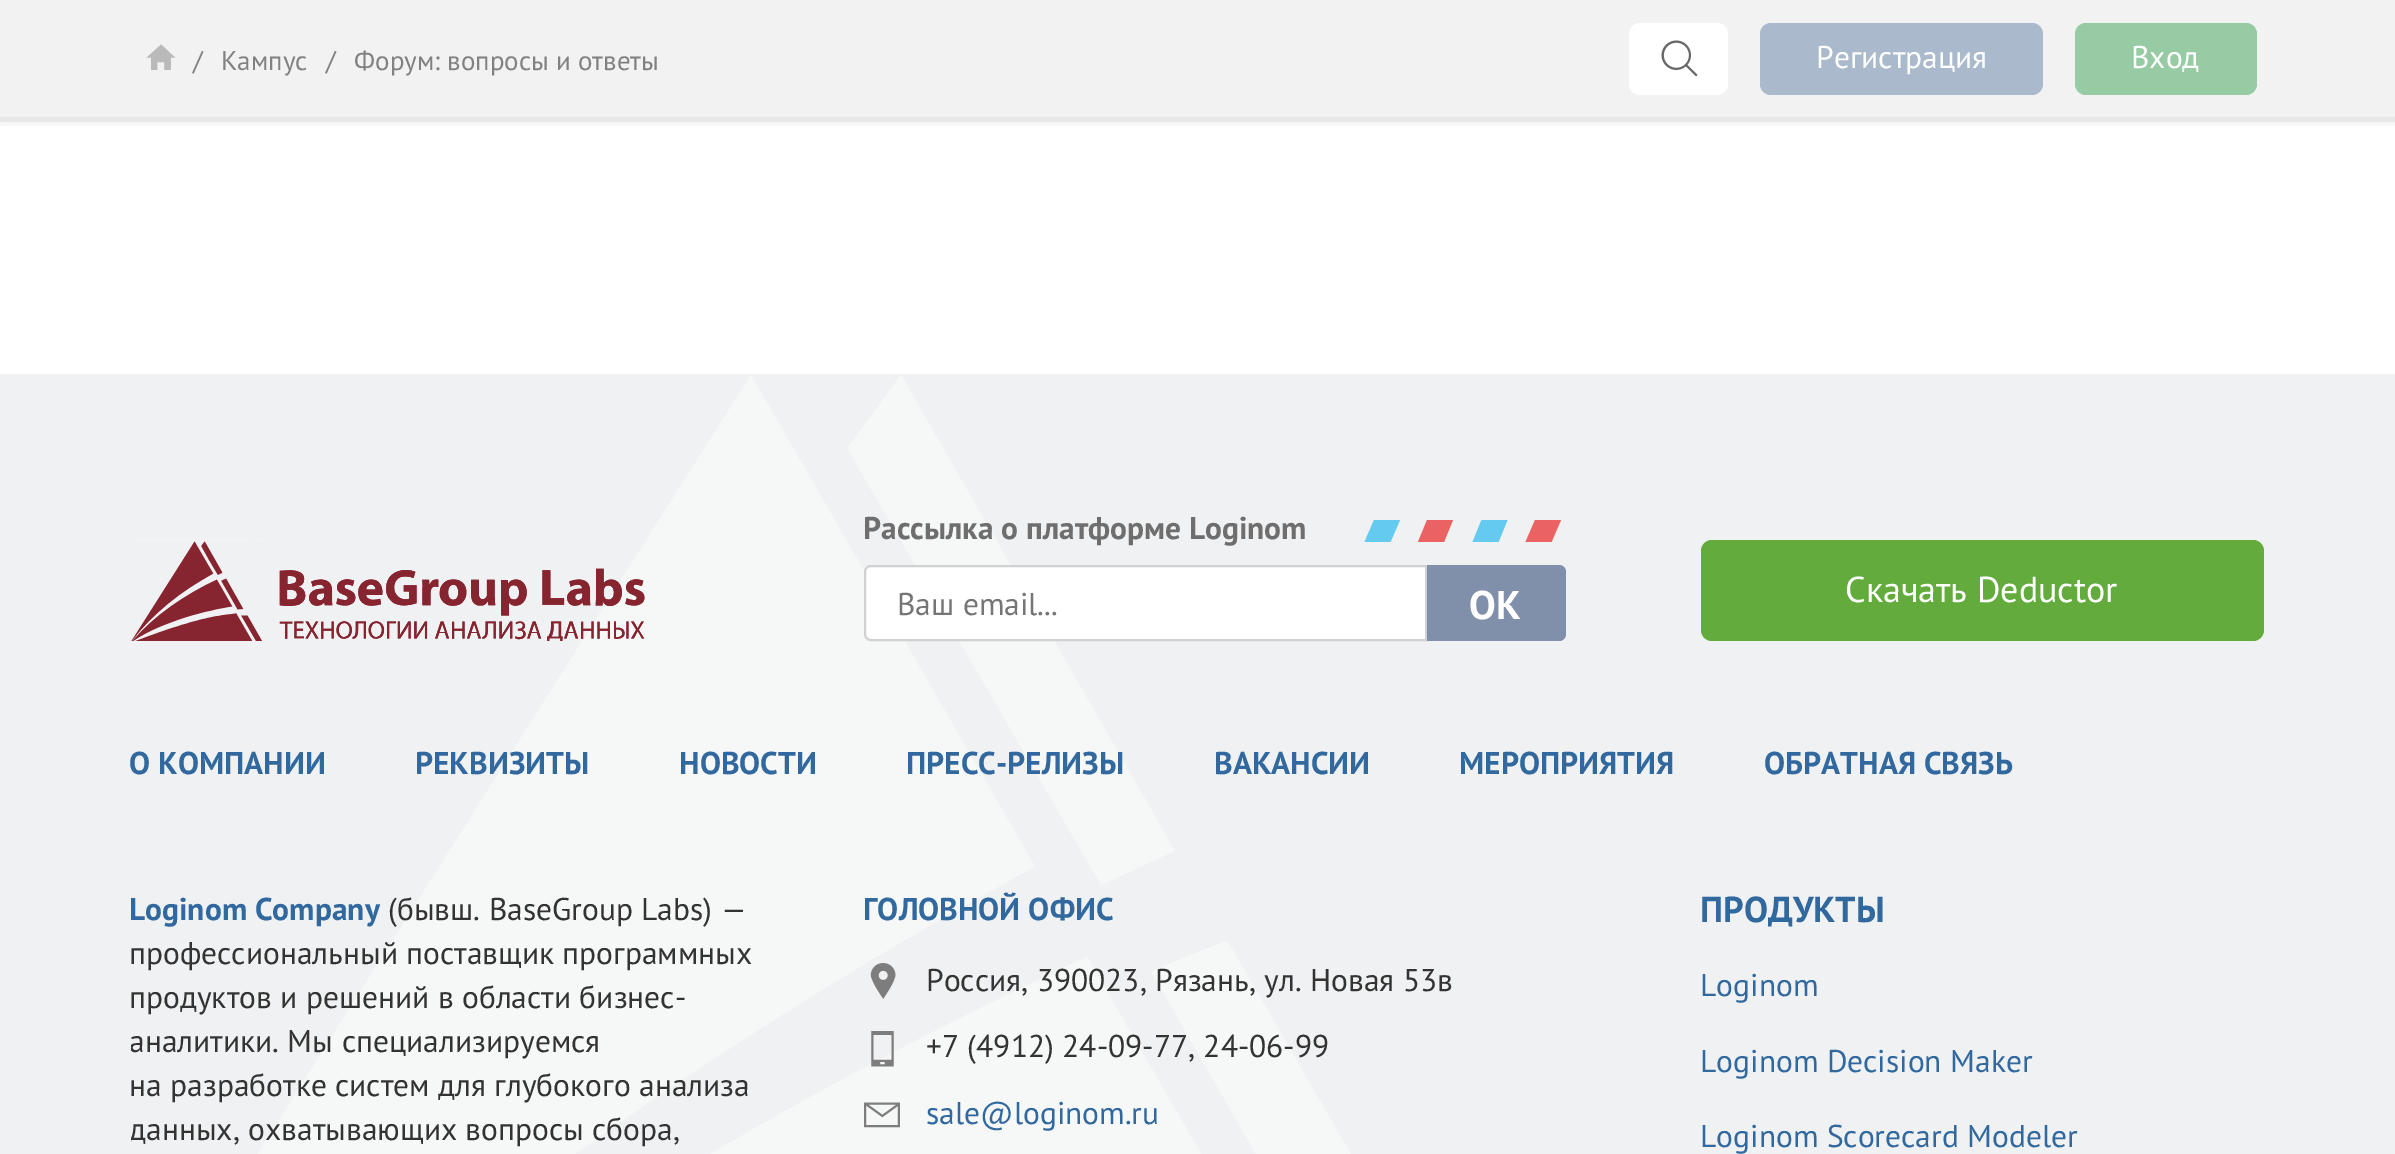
%!PS
<< /PageSize [2395 1154] /PageUsesTransparency true >> setpagedevice
/rgb { 3 { 255 div 3 1 roll } repeat setrgbcolor } def
/font { [ exch dup neg 0 0 3 -1 roll 0 0 ] selectfont } def
/alpha { dup .setfillconstantalpha .setstrokeconstantalpha } def
/roundrect { 5 dict begin { /r /h /w /y /x } { exch def } forall
  x r add y moveto x w add y 2 copy h add r arct x w add y h add x 1 index r arct
  x y h add x y r arct x y 2 copy exch w add exch r arct closepath end } def
/shadow { 12 dict begin { /a /b /q /h /w /y /x } { exch def } forall gsave /was 0 def
  9 -2 -9 { dup b mul 4 div /e exch def 1 sub .425 mul 2.718 exch exp 1 add a .99 .min exch div /now exch def
    1 1 now sub 1 was sub div sub alpha /was now def
    w h .min e 2 mul add 0 gt { x e sub y e sub w e 2 mul add h e 2 mul add
      q e add b .6 mul add w h .min 2 div e add .min 0 .max roundrect fill } if } for grestore end } def
/picture { 5 dict begin { /h /w /y /x /name } { exch def } forall
  gsave x y translate w h scale
  w h 8 [w 0 0 h 0 0] name (r) file false 3 colorimage grestore end } def
0 .pushpdf14devicefilter
0 1154 translate 1 -1 scale
4 setmiterlimit
255 255 255 rgb
0 0 2395 1154 rectfill
0 0 0 rgb
0 5 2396 121 0 1 0.04 shadow
242 242 242 rgb
0 0 2395 117 rectfill
232 232 232 rgb
0 117 2395 5 rectfill
(img/1.rgb) 146 44 30 26 picture
255 255 255 rgb
1629 23 99 72 11 roundrect fill
(img/2.rgb) 1661 40 37 37 picture
170 186 204 rgb
1760 23 283 72 11 roundrect fill
150 203 164 rgb
2075 23 182 72 11 roundrect fill
240 241 242 rgb
0 374 2395 780 rectfill
(img/3.rgb) 258 375 1093 779 picture
(img/4.rgb) 131 540 514 101 picture
100 202 240 rgb
1498.5 542 moveto 1472.5 542 lineto 1481.5 520 lineto 1507.5 520 lineto closepath fill
234 99 98 rgb
1551.5 542 moveto 1525.5 542 lineto 1535 520 lineto 1561 520 lineto closepath fill
100 202 240 rgb
1390.5 542 moveto 1364.5 542 lineto 1374 520 lineto 1400 520 lineto closepath fill
234 99 98 rgb
1444 542 moveto 1418 542 lineto 1427 520 lineto 1453 520 lineto closepath fill
255 255 255 rgb
871 566 moveto 1426 566 lineto 1426 640 lineto 871 640 lineto 867.5 640 865 637.5 865 634 curveto 865 572 lineto 865 568.5 867.5 566 871 566 curveto closepath gsave fill grestore
209 209 209 rgb
2 setlinewidth
stroke
129 144 170 rgb
1427 565 moveto 1559 565 lineto 1563 565 1566 568 1566 572 curveto 1566 634 lineto 1566 638 1563 641 1559 641 curveto 1427 641 lineto closepath fill
99 171 61 rgb
1701 540 563 101 11 roundrect fill
(img/5.rgb) 870 963 26 36 picture
(img/6.rgb) 871 1031 23 36 picture
(img/7.rgb) 864 1102 36 26 picture
/PTSans-Regular 27 font
129 129 129 rgb
[
  [(/) 193 70]
  [(Кампус) 221 70]
  [(/) 326 70]
  [(Форум: вопросы и ответы) 354 70]
] { aload pop moveto show } forall
/PTSans-Regular 31.5 font
255 255 255 rgb
1816 68 moveto (Регистрация) show
2131 68 moveto (Вход) show
/PTSans-Bold 31.5 font
111 110 110 rgb
863 539 moveto (Рассылка о платформе Loginom) show
/PTSans-Regular 31.5 font
117 117 117 rgb
897 615 moveto (Ваш email...) show
/PTSans-Bold 40 font
255 255 255 rgb
1469 619 moveto (OK) show
/PTSans-Regular 36 font
1845 602 moveto (Скачать Deductor) show
/PTSans-Bold 31.5 font
49 104 158 rgb
[
  [(О КОМПАНИИ) 129 774]
  [(РЕКВИЗИТЫ) 415 774]
  [(НОВОСТИ) 679 774]
  [(ПРЕСС-РЕЛИЗЫ) 906 774]
  [(ВАКАНСИИ) 1214 774]
  [(МЕРОПРИЯТИЯ) 1459 774]
  [(ОБРАТНАЯ СВЯЗЬ) 1764 774]
  [(Loginom Company) 129 920]
] { aload pop moveto show } forall
/PTSans-Regular 31.5 font
51 51 51 rgb
[
  [(\(бывш. BaseGroup Labs\) —) 388 920]
  [(профессиональный поставщик программных) 129 964]
  [(продуктов и решений в области бизнес-) 129 1008]
] { aload pop moveto show } forall
gsave
131 889 2137 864 rectclip
129 1052 moveto (аналитики. Мы специализируемся) show
grestore
129 1096 moveto (на разработке систем для глубокого анализа) show
gsave
131 889 2137 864 rectclip
129 1140 moveto (данных, охватывающих вопросы сбора,) show
grestore
/PTSans-Bold 31.5 font
49 104 158 rgb
863 920 moveto (ГОЛОВНОЙ ОФИС) show
/PTSans-Regular 31.5 font
51 51 51 rgb
926 991 moveto (Россия, 390023, Рязань, ул. Новая 53в) show
926 1057 moveto (+7 \(4912\) 24-09-77, 24-06-99) show
49 104 158 rgb
926 1124 moveto (sale@loginom.ru) show
/PTSans-Bold 36 font
1700 922 moveto (ПРОДУКТЫ) show
/PTSans-Regular 31.5 font
[
  [(Loginom) 1700 996]
  [(Loginom Decision Maker) 1700 1072]
  [(Loginom Scorecard Modeler) 1700 1147]
] { aload pop moveto show } forall
.poppdf14devicefilter showpage
